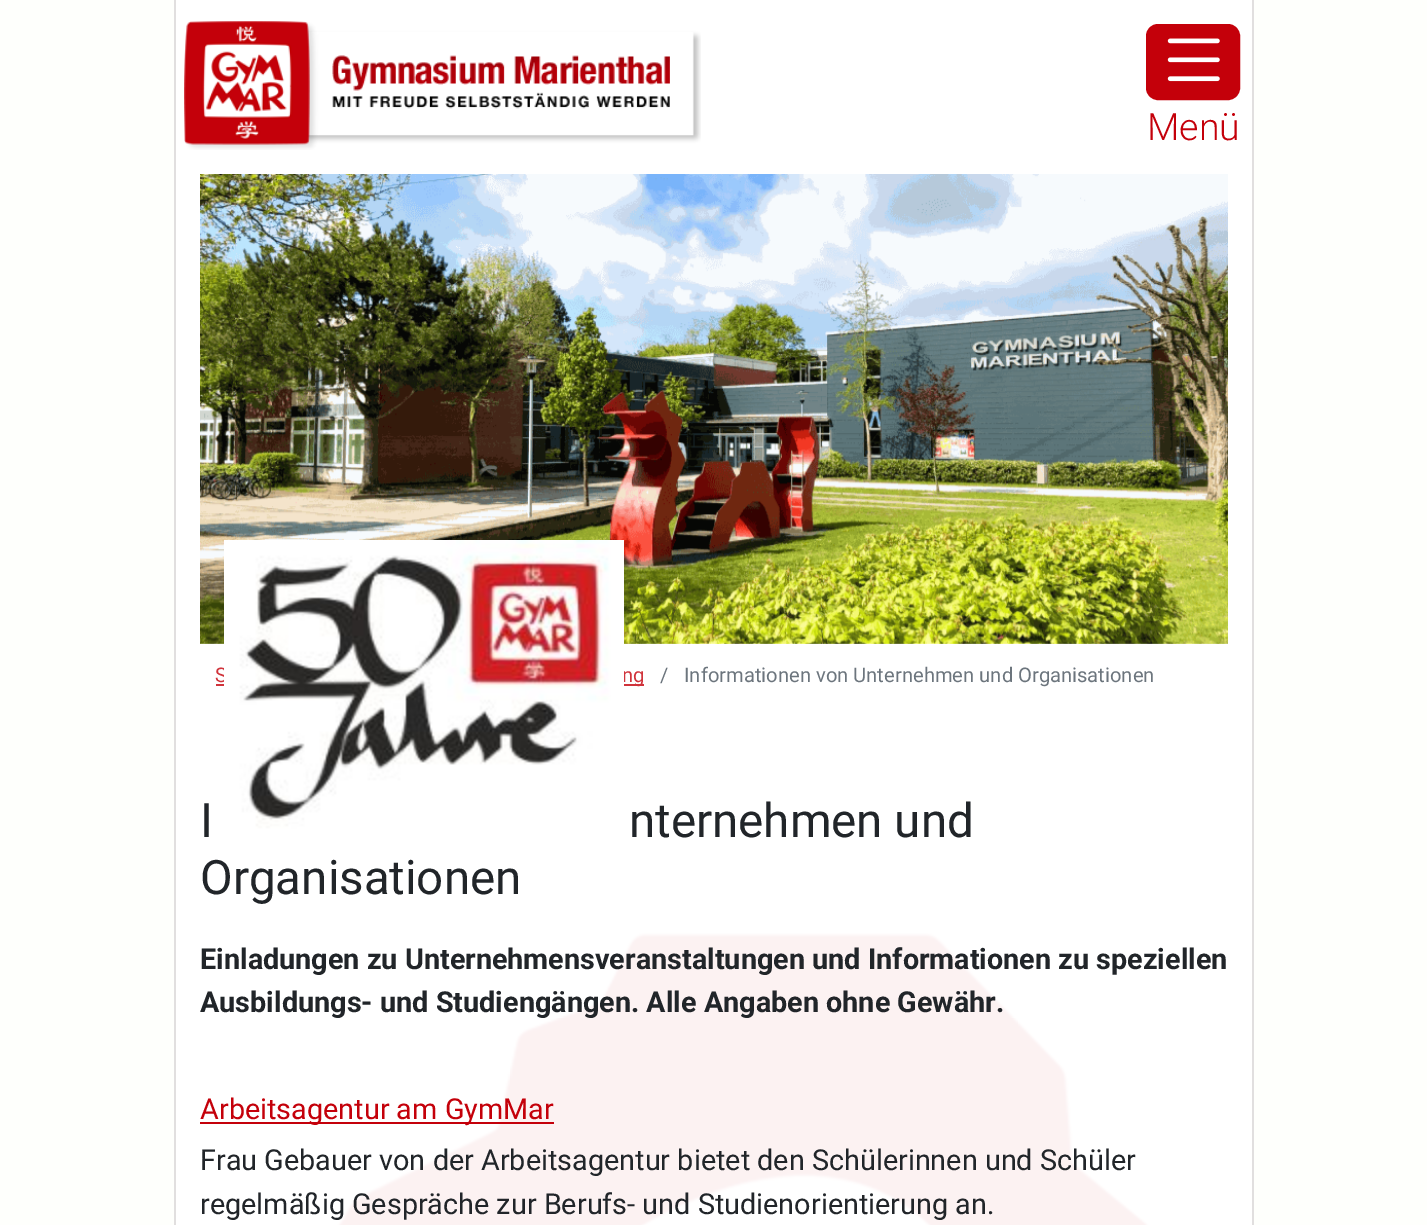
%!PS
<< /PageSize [1427 1225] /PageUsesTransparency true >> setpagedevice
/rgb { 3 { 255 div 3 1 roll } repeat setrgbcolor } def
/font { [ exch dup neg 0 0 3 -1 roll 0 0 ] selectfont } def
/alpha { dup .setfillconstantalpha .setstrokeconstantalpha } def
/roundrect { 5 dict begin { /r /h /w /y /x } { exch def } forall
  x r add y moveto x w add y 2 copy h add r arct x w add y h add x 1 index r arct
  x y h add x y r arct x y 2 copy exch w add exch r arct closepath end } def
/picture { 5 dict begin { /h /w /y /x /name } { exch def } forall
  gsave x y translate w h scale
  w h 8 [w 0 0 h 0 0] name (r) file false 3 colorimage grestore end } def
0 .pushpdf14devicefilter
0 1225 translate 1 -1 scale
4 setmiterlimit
255 255 255 rgb
0 0 1427 1225 rectfill
(img/1.rgb) 0 0 1427 1225 picture
176 0 1076 706 rectfill
(img/2.rgb) 184 21 517 129 picture
196 0 10 rgb
1147 25 92 74 11 roundrect gsave fill grestore
2 setlinewidth
stroke
(img/3.rgb) 1167 38 53 44 picture
(img/4.rgb) 200 174 1028 470 picture
[
  [1252 0 2 1225 225 223 223]
  [174 0 2 1225 225 223 223]
  [216 684 8 2 208 51 59]
  [624 684 20 2 208 51 59]
] { aload pop rgb rectfill } forall
0.95 alpha
[
  [176 706 1076 519 255 255 255]
] { aload pop rgb rectfill } forall
1 alpha
[
  [200 1122 354 2 196 0 10]
] { aload pop rgb rectfill } forall
/Roboto-Light 37.5 font
1147 140 moveto (Menü) show
/Roboto-Regular 20.2 font
208 51 59 rgb
215 682 moveto (S) show
622 682 moveto (ng) show
(img/5.rgb) 224 540 400 298 picture
108 117 125 rgb
660 682 moveto (/) show
684 682 moveto (Informationen von Unternehmen und Organisationen) show
/Roboto-Regular 47.5 font
33 37 41 rgb
[
  [(I) 200 837]
  [(nternehmen und) 629 837]
  [(Organisationen) 200 894]
] { aload pop moveto show } forall
/Roboto-Bold 28.8 font
200 969 moveto (Einladungen zu Unternehmensveranstaltungen und Informationen zu speziellen) show
200 1012 moveto (Ausbildungs- und Studiengängen. Alle Angaben ohne Gewähr.) show
/Roboto-Regular 28.8 font
196 0 10 rgb
200 1119 moveto (Arbeitsagentur am GymMar) show
33 37 41 rgb
200 1170 moveto (Frau Gebauer von der Arbeitsagentur bietet den Schülerinnen und Schüler) show
200 1214 moveto (regelmäßig Gespräche zur Berufs- und Studienorientierung an.) show
.poppdf14devicefilter showpage
